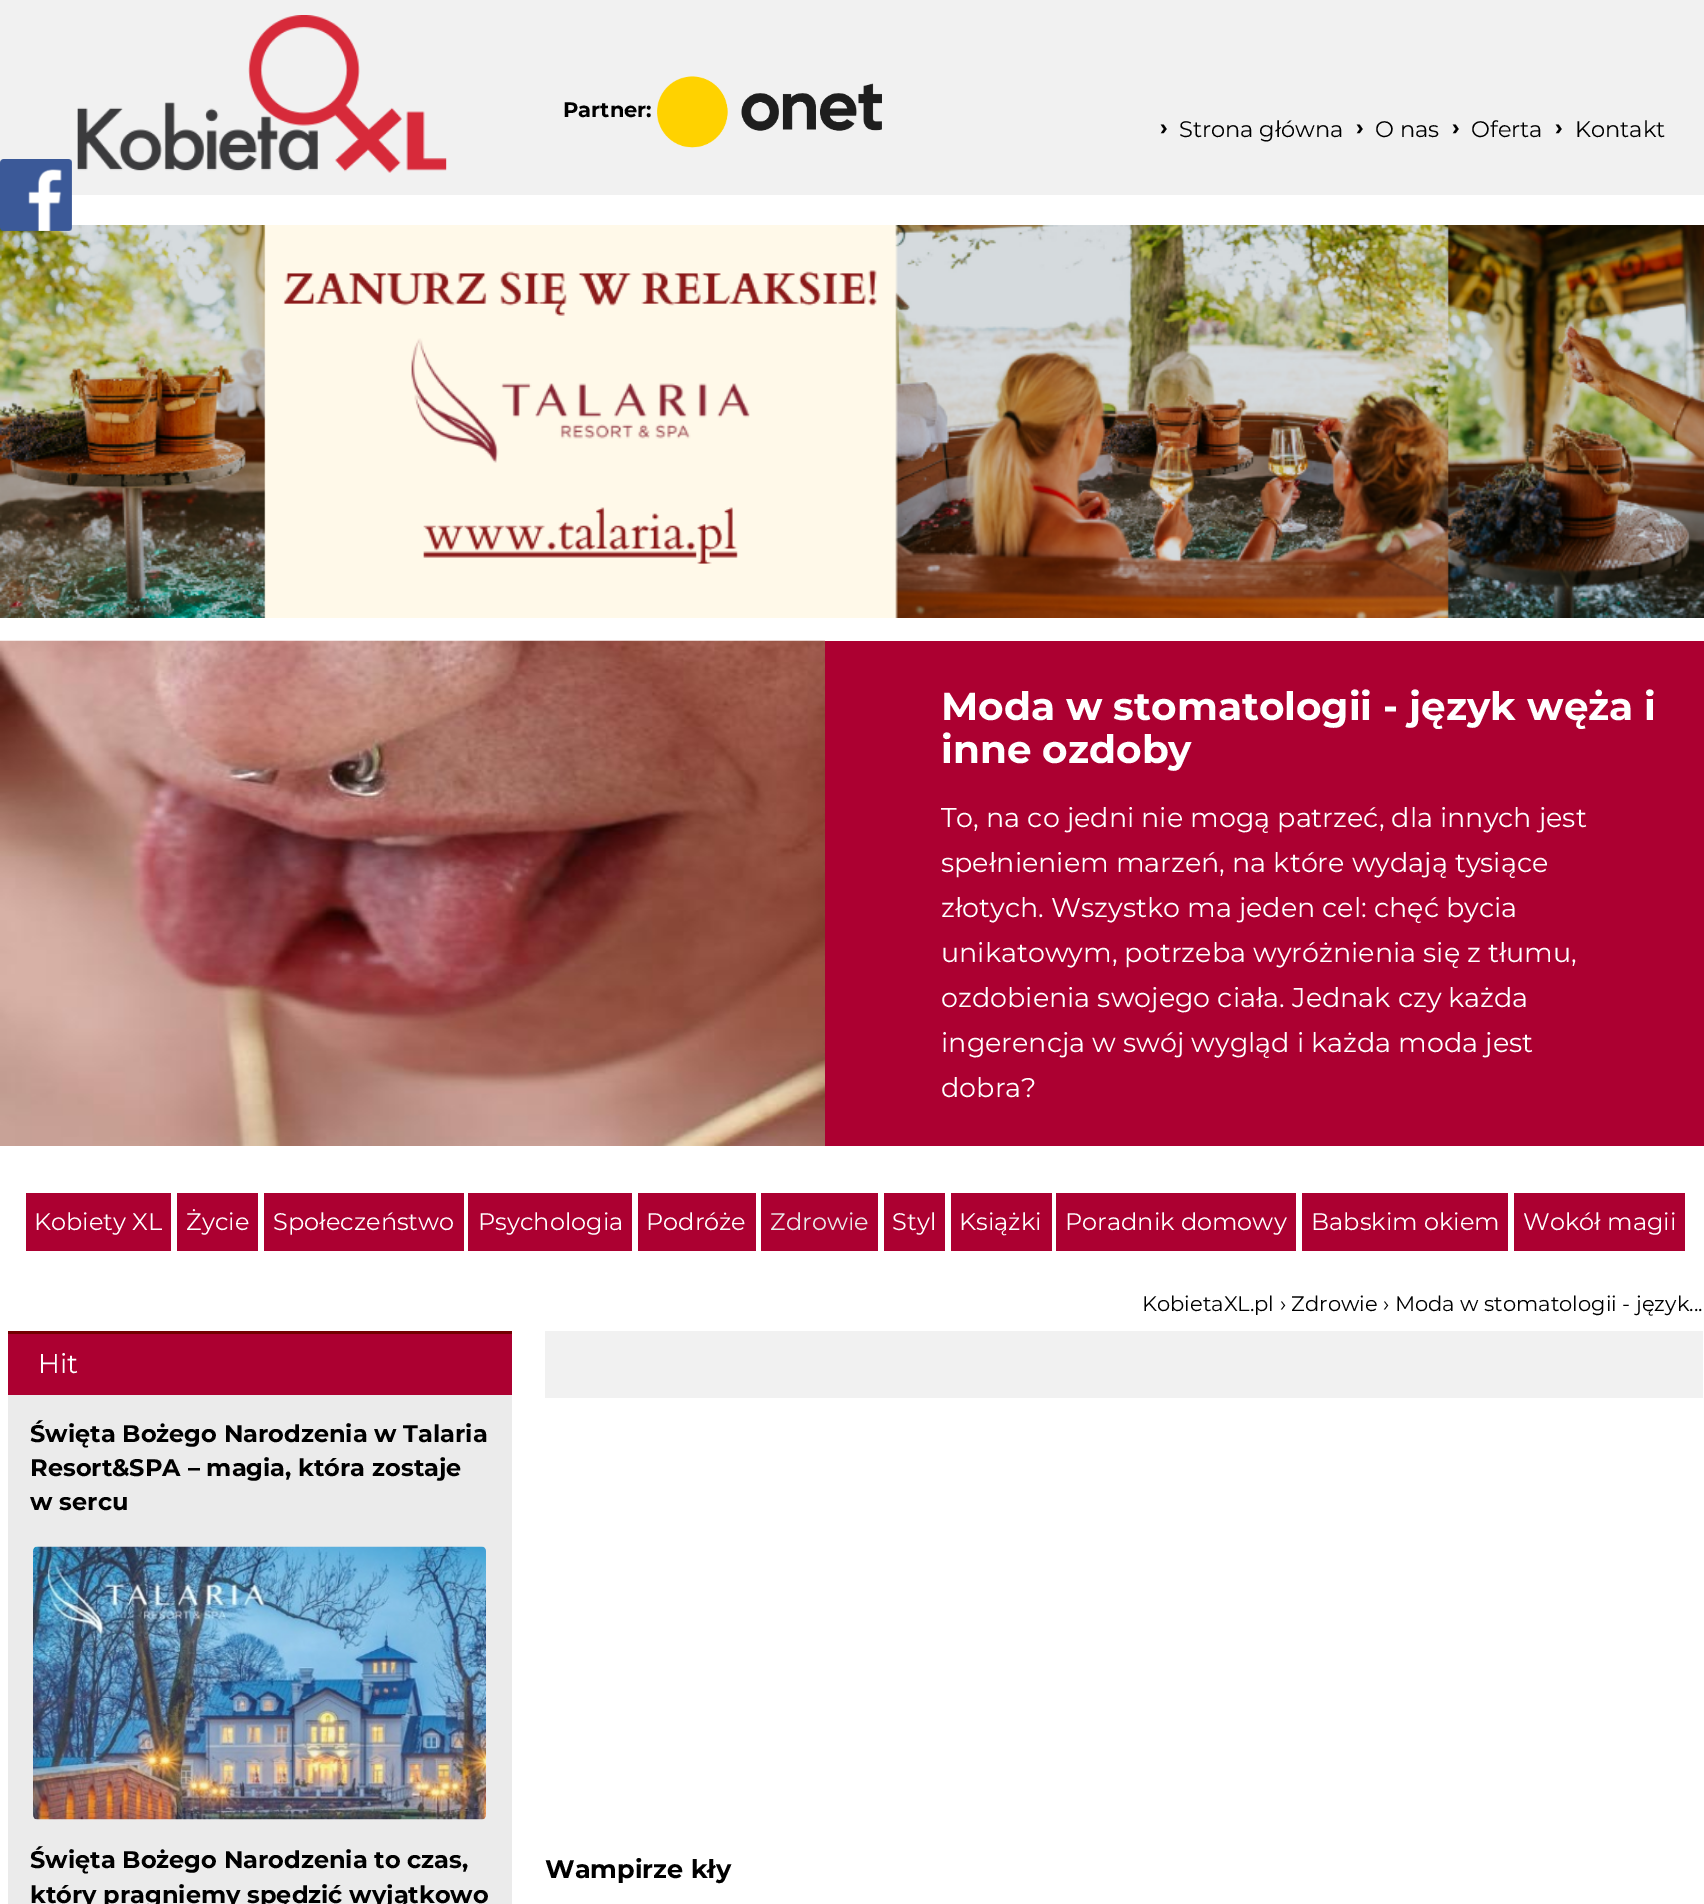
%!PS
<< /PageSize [1704 1904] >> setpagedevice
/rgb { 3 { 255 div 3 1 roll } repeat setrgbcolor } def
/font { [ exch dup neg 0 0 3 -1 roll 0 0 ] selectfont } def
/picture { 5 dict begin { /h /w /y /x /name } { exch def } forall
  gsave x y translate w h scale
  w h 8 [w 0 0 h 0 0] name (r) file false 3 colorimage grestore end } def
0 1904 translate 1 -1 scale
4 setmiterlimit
255 255 255 rgb
0 0 1704 1904 rectfill
241 241 241 rgb
0 0 1704 195 rectfill
(img/1.rgb) 77 15 370 158 picture
(img/2.rgb) 657 76 225 72 picture
(img/3.rgb) 0 225 1704 393 picture
172 0 49 rgb
825 641 879 505 rectfill
(img/4.rgb) 0 640 825 506 picture
[
  [26 1193 145 58 172 0 49]
  [177 1193 81 58 172 0 49]
  [264 1193 200 58 172 0 49]
  [468 1193 164 58 172 0 49]
  [638 1193 118 58 172 0 49]
  [761 1193 117 58 172 0 49]
  [884 1193 61 58 172 0 49]
  [951 1193 101 58 172 0 49]
  [1056 1193 240 58 172 0 49]
  [1302 1193 206 58 172 0 49]
  [1514 1193 171 58 172 0 49]
  [8 1334 504 61 172 0 49]
  [8 1331 504 3 114 0 0]
  [8 1395 504 509 235 235 235]
] { aload pop rgb rectfill } forall
(img/5.rgb) 33 1546 453 274 picture
241 241 241 rgb
545 1331 1158 67 rectfill
(img/6.rgb) 0 159 72 72 picture
/Montserrat-Bold 21 font
0 0 0 rgb
563 117 moveto (Partner:) show
/Montserrat-Bold 22.5 font
1160 135 moveto (›) show
/Montserrat-Regular 22.5 font
1179 137 moveto (Strona główna) show
/Montserrat-Bold 22.5 font
1356 135 moveto (›) show
/Montserrat-Regular 22.5 font
1375 137 moveto (O nas) show
/Montserrat-Bold 22.5 font
1452 135 moveto (›) show
/Montserrat-Regular 22.5 font
1471 137 moveto (Oferta) show
/Montserrat-Bold 22.5 font
1555 135 moveto (›) show
/Montserrat-Regular 22.5 font
1575 137 moveto (Kontakt) show
/Montserrat-Bold 39 font
255 255 255 rgb
941 720 moveto (Moda w stomatologii - język węża i) show
941 763 moveto (inne ozdoby) show
/Montserrat-Regular 27 font
[
  [(To, na co jedni nie mogą patrzeć, dla innych jest) 941 827]
  [(spełnieniem marzeń, na które wydają tysiące) 941 872]
  [(złotych. Wszystko ma jeden cel: chęć bycia) 941 917]
  [(unikatowym, potrzeba wyróżnienia się z tłumu,) 941 962]
  [(ozdobienia swojego ciała. Jednak czy każda) 941 1007]
  [(ingerencja w swój wygląd i każda moda jest) 941 1052]
  [(dobra?) 941 1097]
] { aload pop moveto show } forall
/Montserrat-Regular 24 font
[
  [(Kobiety XL) 34 1230]
  [(Życie) 186 1230]
  [(Społeczeństwo) 273 1230]
  [(Psychologia) 478 1230]
  [(Podróże) 646 1230]
] { aload pop moveto show } forall
234 234 234 rgb
770 1230 moveto (Zdrowie) show
255 255 255 rgb
[
  [(Styl) 892 1230]
  [(Książki) 959 1230]
  [(Poradnik domowy) 1065 1230]
  [(Babskim okiem) 1311 1230]
  [(Wokół magii) 1523 1230]
] { aload pop moveto show } forall
/Montserrat-Regular 21 font
0 0 0 rgb
1142 1311 moveto (KobietaXL.pl › Zdrowie › Moda w stomatologii - język...) show
/Montserrat-Regular 27 font
255 255 255 rgb
38 1373 moveto (Hit) show
/Montserrat-Bold 24 font
0 0 0 rgb
[
  [(Święta Bożego Narodzenia w Talaria) 30 1442]
  [(Resort&SPA – magia, która zostaje) 30 1476]
  [(w sercu) 30 1510]
  [(Święta Bożego Narodzenia to czas,) 30 1868]
  [(który pragniemy spędzić wyjątkowo) 30 1903]
] { aload pop moveto show } forall
/Montserrat-Bold 25.5 font
545 1878 moveto (Wampirze kły) show
showpage
